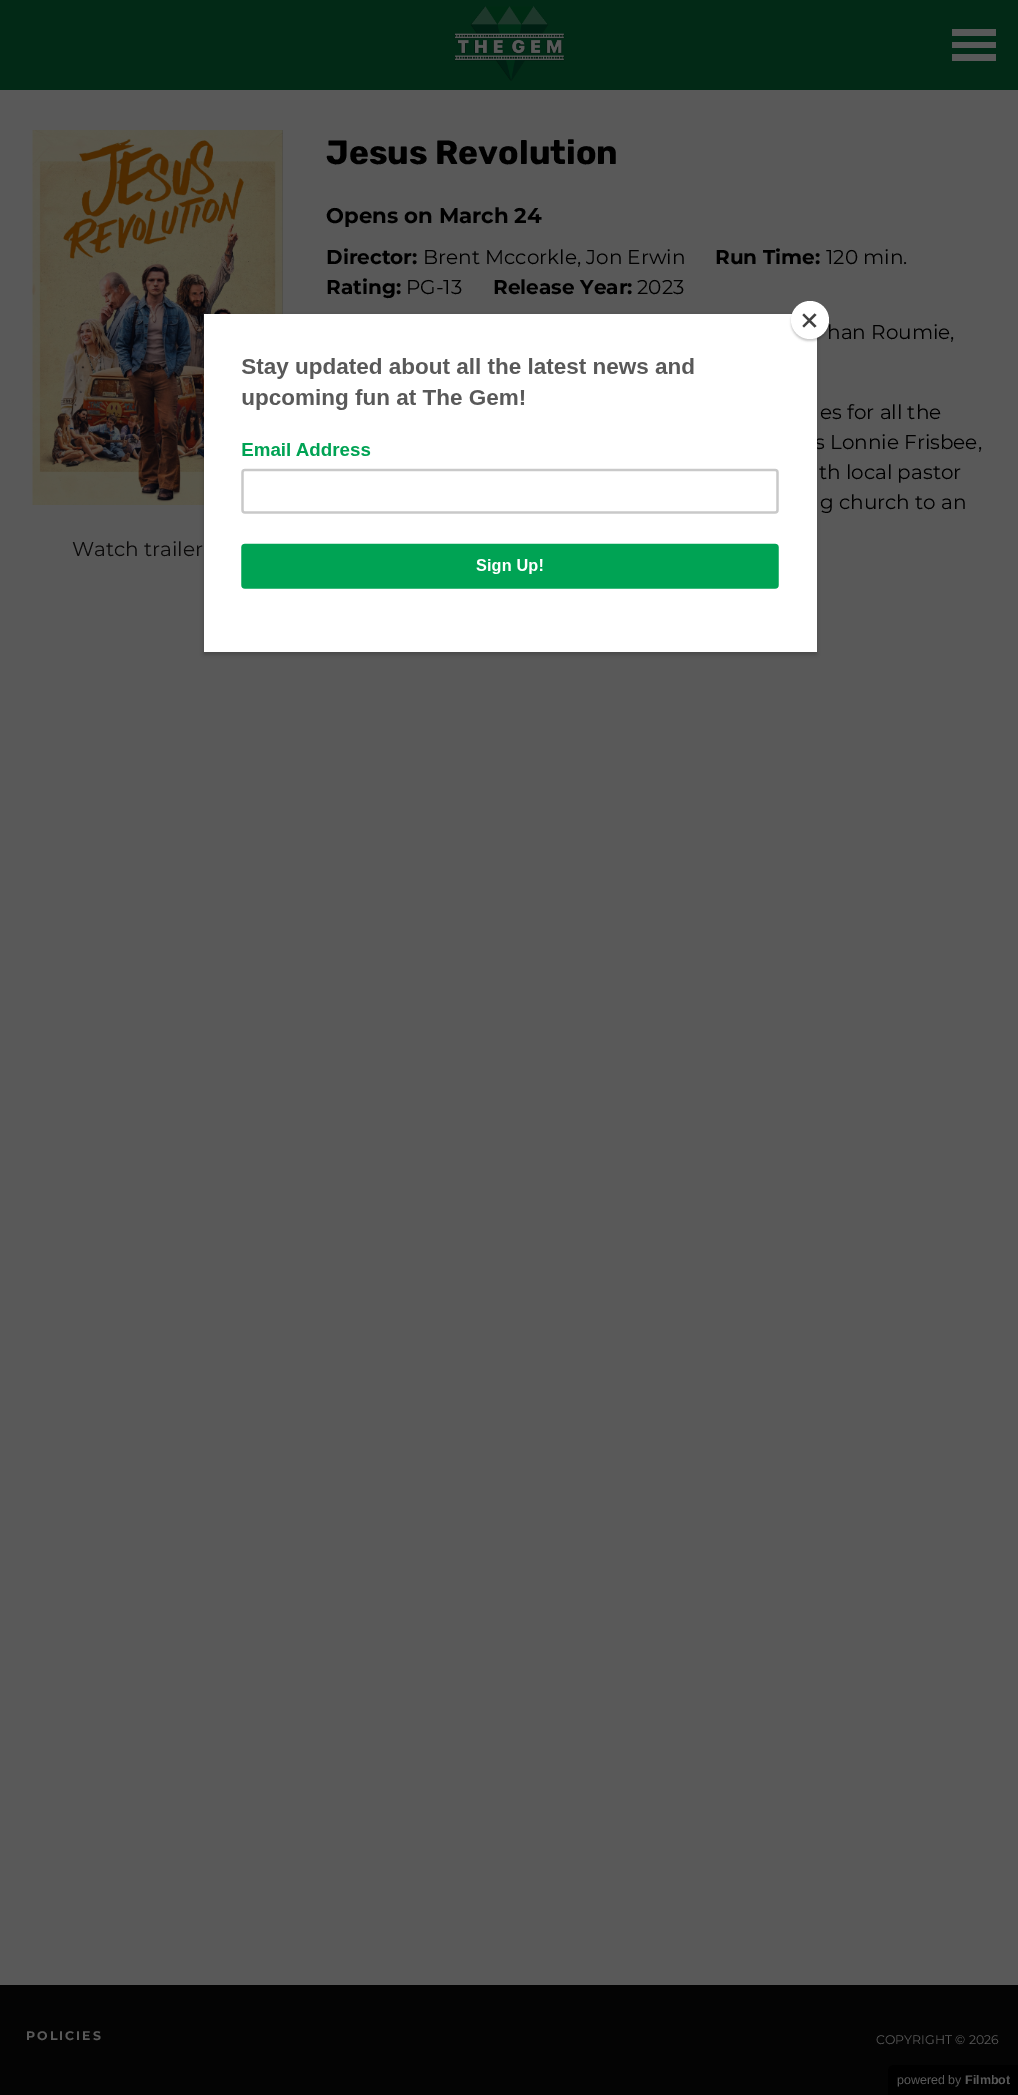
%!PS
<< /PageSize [1018 2095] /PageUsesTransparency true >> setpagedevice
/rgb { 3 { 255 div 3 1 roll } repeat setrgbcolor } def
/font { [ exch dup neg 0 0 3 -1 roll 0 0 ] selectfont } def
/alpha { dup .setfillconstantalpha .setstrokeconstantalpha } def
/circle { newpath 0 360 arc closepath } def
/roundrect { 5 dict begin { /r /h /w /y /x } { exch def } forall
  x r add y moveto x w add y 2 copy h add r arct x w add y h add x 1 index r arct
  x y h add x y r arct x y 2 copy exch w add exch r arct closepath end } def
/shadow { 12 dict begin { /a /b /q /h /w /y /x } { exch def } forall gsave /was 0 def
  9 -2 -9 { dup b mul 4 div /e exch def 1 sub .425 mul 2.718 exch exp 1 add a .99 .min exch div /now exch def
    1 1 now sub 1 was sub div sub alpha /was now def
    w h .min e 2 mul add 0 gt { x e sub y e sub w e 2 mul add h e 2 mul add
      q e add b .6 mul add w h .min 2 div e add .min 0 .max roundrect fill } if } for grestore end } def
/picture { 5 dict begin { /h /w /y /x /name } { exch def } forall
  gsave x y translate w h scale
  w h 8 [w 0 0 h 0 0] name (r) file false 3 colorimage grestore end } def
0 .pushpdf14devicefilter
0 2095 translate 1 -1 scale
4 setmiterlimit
89 89 89 rgb
0 0 1018 2095 rectfill
2 41 22 rgb
0 0 1018 90 rectfill
(img/1.rgb) 454 6 111 75 picture
89 89 89 rgb
952 29 moveto 952 36 lineto 996 36 lineto 996 29 lineto closepath 952 42 moveto 952 48 lineto 996 48 lineto 996 42 lineto closepath 952 54 moveto 952 61 lineto 996 61 lineto 996 54 lineto closepath fill
71 71 71 rgb
282 130 1 184 rectfill
(img/2.rgb) 32 130 251 375 picture
0 0 0 rgb
204 316 612 338 0 2.5 0.2 shadow
4 4 4 rgb
0 1985 1018 110 rectfill
0 0 0 rgb
894 2065 moveto 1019 2065 lineto 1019 2095 lineto 888 2095 lineto 888 2071 lineto 888 2067.5 890.5 2065 894 2065 curveto closepath fill
/Rubik-Bold 33.75 font
326 164 moveto (Jesus Revolution) show
/Montserrat-Bold 21.25 font
326 223 moveto (Opens on March 24) show
/Montserrat-Bold 20 font
326 264 moveto (Director:) show
/Montserrat-Regular 20 font
423 264 moveto (Brent Mccorkle, Jon Erwin) show
/Montserrat-Bold 20 font
715 264 moveto (Run Time:) show
/Montserrat-Regular 20 font
826 264 moveto (120 min.) show
/Montserrat-Bold 20 font
326 294 moveto (Rating:) show
/Montserrat-Regular 20 font
406 294 moveto (PG-13) show
/Montserrat-Bold 20 font
493 294 moveto (Release Year:) show
/Montserrat-Regular 20 font
[
  [(2023) 637 294]
  [(han Roumie,) 827 339]
  [(es for all the) 820 419]
  [(s Lonnie Frisbee,) 815 449]
  [(th local pastor) 819 479]
  [(g church to an) 820 509]
] { aload pop moveto show } forall
12 11 11 rgb
72 556 moveto (Watch trailer) show
(img/3.rgb) 204 314 613 338 picture
0 0 0 rgb
791 304 38 37 18.5 1 0.2 shadow
255 255 255 rgb
810 320 19 circle fill
65 65 65 rgb
814.5 313.5 moveto 816.5 315 lineto 804 327.5 lineto 802.5 326 lineto closepath fill
802.5 315 moveto 804 313.5 lineto 816.5 326 lineto 814.5 327.5 lineto closepath fill
/Montserrat-Bold 12.5 font
89 89 89 rgb
26 2040 moveto 2 0 (POLICIES) ashow
/Montserrat-Regular 12.5 font
876 2044 moveto (COPYRIGHT © 2026) show
/LiberationSans-Regular 12.5 font
897 2084 moveto (powered by) show
/LiberationSans-Bold 12.5 font
965 2084 moveto (Filmbot) show
.poppdf14devicefilter showpage
